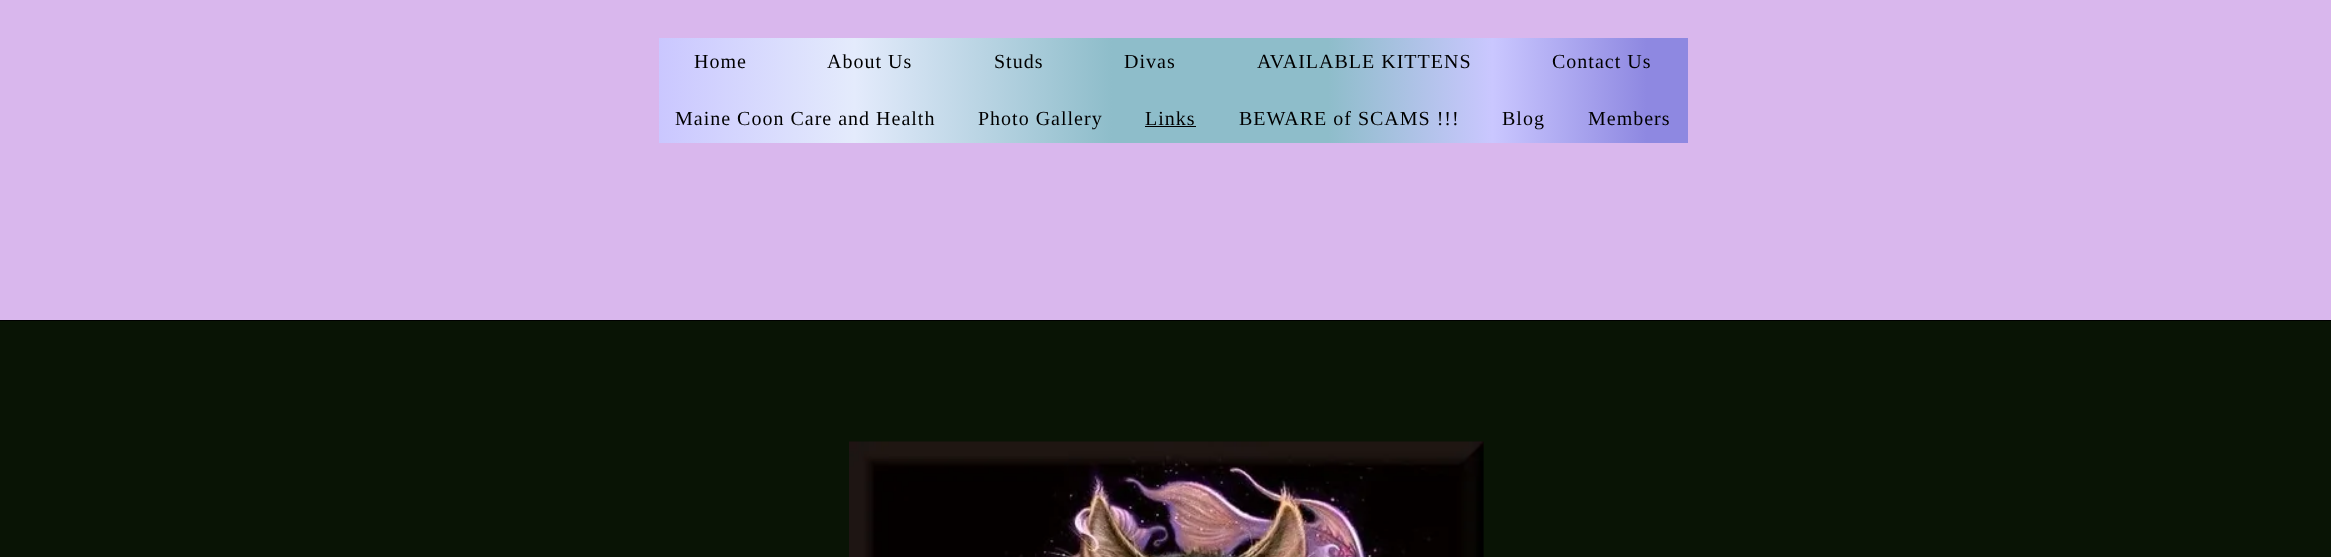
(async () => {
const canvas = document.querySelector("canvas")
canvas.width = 2331
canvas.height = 557
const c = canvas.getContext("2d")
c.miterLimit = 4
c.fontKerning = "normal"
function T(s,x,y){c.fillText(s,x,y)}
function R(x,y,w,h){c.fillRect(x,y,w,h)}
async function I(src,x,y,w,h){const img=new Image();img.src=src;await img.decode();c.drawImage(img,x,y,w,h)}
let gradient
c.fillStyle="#000"
R(0,0,2331,557)
c.fillStyle="#d9b7ed"
R(0,0,2331,320)
gradient = c.createLinearGradient(659,90,1688,90)
gradient.addColorStop(0,"#ff4500")
gradient.addColorStop(0,"#f9c300")
gradient.addColorStop(0,"#cac7ff")
gradient.addColorStop(.19,"#e4ebfc")
gradient.addColorStop(.44,"#8ebdca")
gradient.addColorStop(.65,"#8ebdca")
gradient.addColorStop(.81,"#cac7ff")
gradient.addColorStop(.96,"#8e88e1")
c.fillStyle = gradient
R(659,38,1029,105)
c.letterSpacing="1px"
c.font="20px Liberation Serif"
c.fillStyle="#000"
T("Home",694,68)
T("About Us",827,68)
T("Studs",994,68)
T("Divas",1124,68)
T("AVAILABLE KITTENS",1257,68)
T("Contact Us",1552,68)
T("Maine Coon Care and Health",675,125)
T("Photo Gallery",978,125)
T("Links",1145,125)
R(1145,126,51,1)
T("BEWARE of SCAMS !!!",1239,125)
T("Blog",1502,125)
T("Members",1588,125)
c.fillStyle="#091405"
R(0,321,2331,236)
await I("1.png",849,441,635,116)
})()
